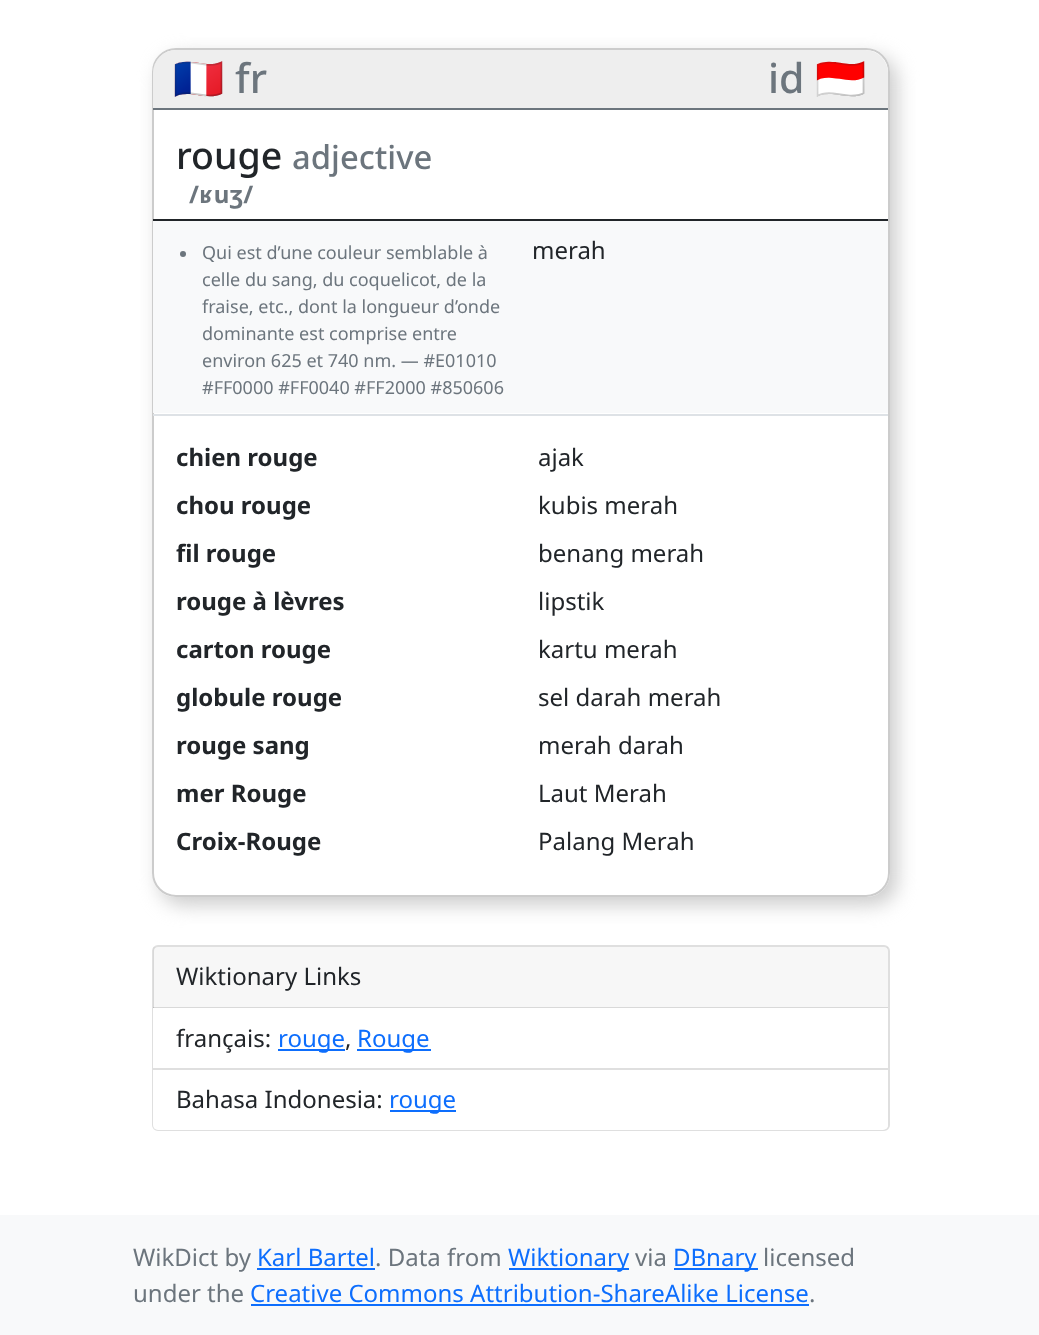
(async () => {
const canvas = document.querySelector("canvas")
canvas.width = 1039
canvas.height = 1335
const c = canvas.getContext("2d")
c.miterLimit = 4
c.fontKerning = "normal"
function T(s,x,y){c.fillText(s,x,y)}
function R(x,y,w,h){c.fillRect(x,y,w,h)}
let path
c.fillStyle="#fff"
R(0,0,1039,1335)
c.save()
path = new Path2D("M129 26h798v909h-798zm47 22h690c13.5 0 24 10.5 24 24v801c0 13.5-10.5 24-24 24h-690c-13.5 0-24-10.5-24-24v-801c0-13.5 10.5-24 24-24z")
c.clip(path,"evenodd")
c.fillStyle="#ccc"
c.filter="blur(9.5px)"
c.beginPath()
c.roundRect(159,56,738,849,24)
c.fill()
c.filter="none"
c.restore()
c.beginPath()
c.roundRect(153,49,736,847,23)
c.strokeStyle="#ccc"
c.lineWidth=2
c.stroke()
c.fillStyle="#eee"
c.beginPath()
c.roundRect(153,50,735,60,[23,23,0,0])
c.fill()
c.fillStyle="#6c757d"
R(153,108,735,2)
c.font="41px Noto Color Emoji"
T("🇫🇷",173,93)
c.font="500 41px Noto Sans"
T("fr",235,93)
T("id",768,93)
c.font="41px Noto Color Emoji"
T("🇮🇩",815,93)
c.fillStyle="#212529"
R(153,219,735,2)
c.font="500 37.5px Noto Sans"
T("rouge",176,169)
c.font="500 32.75px Noto Sans"
c.fillStyle="#6c757d"
T("adjective",292,169)
c.font="bold 24px Noto Sans"
T("/ʁuʒ/",189,203)
c.fillStyle="#f8f9fa"
R(153,221,735,192)
c.fillStyle="#6c757d"
c.beginPath()
c.arc(183,254,3,0,7)
c.fill()
c.font="18px Noto Sans"
T("Qui est d’une couleur semblable à",202,259)
T("celle du sang, du coquelicot, de la",202,286)
T("fraise, etc., dont la longueur d’onde",202,313)
T("dominante est comprise entre",202,340)
T("environ 625 et 740 nm. — #E01010",202,367)
T("#FF0000 #FF0040 #FF2000 #850606",202,394)
c.fillStyle="#dee2e6"
R(153,414,735,2)
c.font="24px Noto Sans"
c.fillStyle="#212529"
T("merah",532,259)
c.font="bold 24px Noto Sans"
T("chien rouge",176,466)
c.font="24px Noto Sans"
T("ajak",538,466)
c.font="bold 24px Noto Sans"
T("chou rouge",176,514)
c.font="24px Noto Sans"
T("kubis merah",538,514)
c.font="bold 24px Noto Sans"
T("fil rouge",176,562)
c.font="24px Noto Sans"
T("benang merah",538,562)
c.font="bold 24px Noto Sans"
T("rouge à lèvres",176,610)
c.font="24px Noto Sans"
T("lipstik",538,610)
c.font="bold 24px Noto Sans"
T("carton rouge",176,658)
c.font="24px Noto Sans"
T("kartu merah",538,658)
c.font="bold 24px Noto Sans"
T("globule rouge",176,706)
c.font="24px Noto Sans"
T("sel darah merah",538,706)
c.font="bold 24px Noto Sans"
T("rouge sang",176,754)
c.font="24px Noto Sans"
T("merah darah",538,754)
c.font="bold 24px Noto Sans"
T("mer Rouge",176,802)
c.font="24px Noto Sans"
T("Laut Merah",538,802)
c.font="bold 24px Noto Sans"
T("Croix-Rouge",176,850)
c.font="24px Noto Sans"
T("Palang Merah",538,850)
c.beginPath()
c.roundRect(153,946,736,184,5)
c.strokeStyle="#dfdfdf"
c.stroke()
c.fillStyle="#00000008"
R(153,947,735,61)
c.fillStyle="#0000001f"
R(153,1007,735,1)
c.fillStyle="#212529"
T("Wiktionary Links",176,985)
c.fillStyle="#fff"
R(153,1008,1,60)
c.fillStyle="#dfdfdf"
R(153,1068,735,2)
c.fillStyle="#212529"
T("français:",176,1047)
c.fillStyle="#0d6efd"
R(278,1049,67,2)
T("rouge",278,1047)
c.fillStyle="#212529"
T(",",345,1047)
c.fillStyle="#0d6efd"
R(357,1049,74,2)
T("Rouge",357,1047)
c.fillStyle="#fff"
c.beginPath()
c.roundRect(153,1070,735,60,[0,0,5,5])
c.fill()
c.fillStyle="#212529"
T("Bahasa Indonesia:",176,1108)
c.fillStyle="#0d6efd"
R(390,1110,66,2)
T("rouge",389,1108)
c.fillStyle="#f8f9fa"
R(0,1215,1039,120)
c.fillStyle="#6c757d"
T("WikDict by",133,1266)
c.fillStyle="#0d6efd"
T("Karl Bartel",257,1266)
R(257,1268,118,2)
c.fillStyle="#6c757d"
T(". Data from",375,1266)
c.fillStyle="#0d6efd"
R(509,1268,120,2)
T("Wiktionary",508,1266)
c.fillStyle="#6c757d"
T("via",635,1266)
c.fillStyle="#0d6efd"
R(674,1268,84,2)
T("DBnary",673,1266)
c.fillStyle="#6c757d"
T("licensed",763,1266)
T("under the",133,1302)
c.fillStyle="#0d6efd"
T("Creative Commons Attribution-ShareAlike License",250,1302)
R(251,1304,558,2)
c.fillStyle="#6c757d"
T(".",809,1302)
})()
